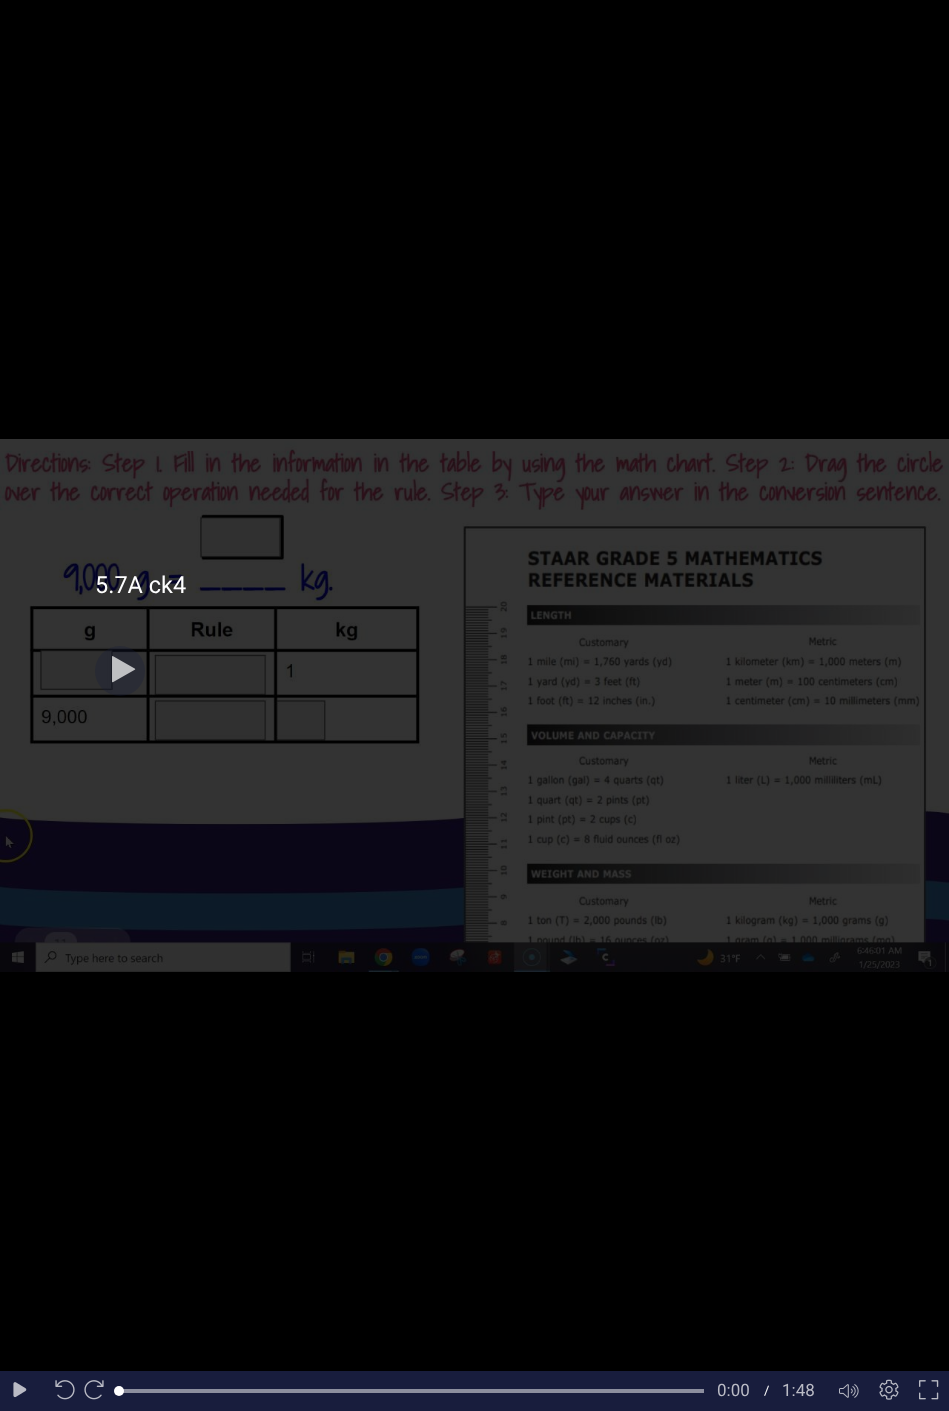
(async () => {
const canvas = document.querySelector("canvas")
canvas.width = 949
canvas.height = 1411
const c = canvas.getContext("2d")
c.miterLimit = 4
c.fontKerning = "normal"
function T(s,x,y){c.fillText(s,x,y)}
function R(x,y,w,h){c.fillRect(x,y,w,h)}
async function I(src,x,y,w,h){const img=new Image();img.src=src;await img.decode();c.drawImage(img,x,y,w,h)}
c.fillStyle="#000"
R(0,0,949,1411)
await I("2.png",0,439,949,533)
c.font="23.5px Roboto"
c.fillStyle="#fff"
T("5.7A ck4",95,593)
c.fillStyle="#181d3d4d"
c.beginPath()
c.arc(120,671,25,0,7)
c.fill()
await I("1.png",112,656,24,27)
c.fillStyle="#181d3d"
R(0,1371,750,40)
await I("3.png",13,1382,14,16)
R(750,1371,199,40)
await I("4.png",879,1379,20,21)
await I("5.png",55,1380,20,20)
await I("6.png",84,1380,20,20)
c.fillStyle="#8c8e9e"
R(119,1389,585,4)
c.fillStyle="#fff"
c.beginPath()
c.arc(119,1391,5,0,7)
c.fill()
c.font="17px Roboto"
c.fillStyle="#babbc5"
T("0:00",717,1396)
c.font="13px Roboto"
c.fillStyle="#fff"
T("/",764,1395)
c.font="17px Roboto"
c.fillStyle="#babbc5"
T("1:48",782,1396)
await I("7.png",839,1384,20,14)
await I("8.png",919,1380,20,20)
})()
